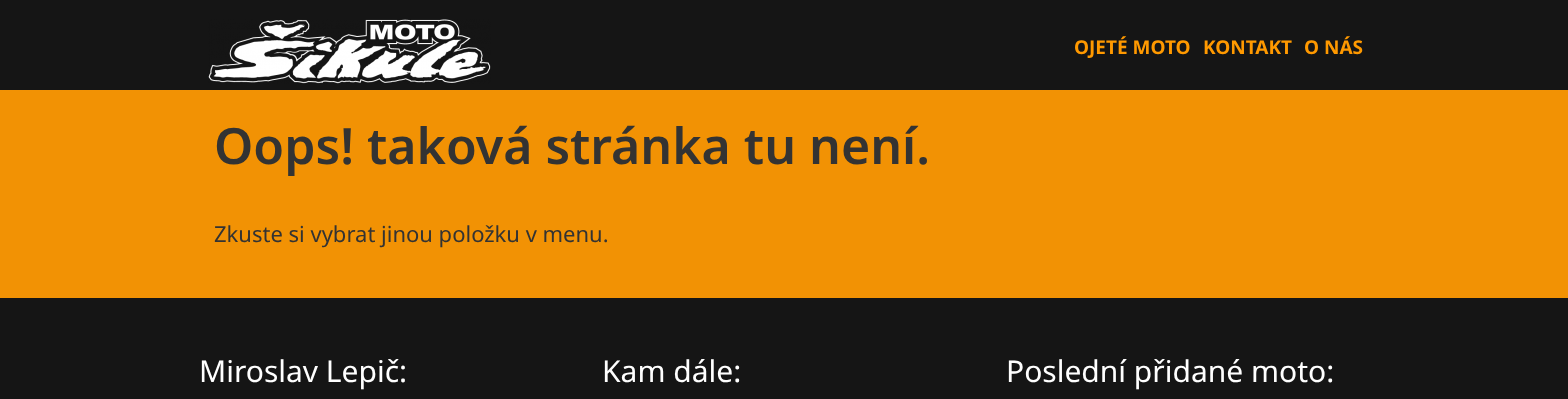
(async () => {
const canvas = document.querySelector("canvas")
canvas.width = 1568
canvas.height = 399
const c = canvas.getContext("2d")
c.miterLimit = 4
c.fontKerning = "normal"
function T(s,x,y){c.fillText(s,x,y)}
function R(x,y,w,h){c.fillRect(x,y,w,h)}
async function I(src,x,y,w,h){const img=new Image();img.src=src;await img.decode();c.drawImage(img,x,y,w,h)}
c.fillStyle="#f29204"
R(0,0,1568,399)
c.fillStyle="#151515"
R(0,0,1568,90)
await I("1.png",208,19,283,65)
c.font="bold 19px Noto Sans"
c.fillStyle="#f90"
T("OJETÉ MOTO",1074,54)
T("KONTAKT",1203,54)
T("O NÁS",1304,54)
c.font="600 50px Noto Sans"
c.fillStyle="#333"
T("Oops! taková stránka tu není.",214,164)
c.font="22px Noto Sans"
T("Zkuste si vybrat jinou položku v menu.",214,242)
c.fillStyle="#151515"
R(0,298,1568,101)
c.font="30px Noto Sans"
c.fillStyle="#fff"
T("Miroslav Lepič:",199,382)
T("Kam dále:",602,382)
T("Poslední přidané moto:",1006,382)
})()
